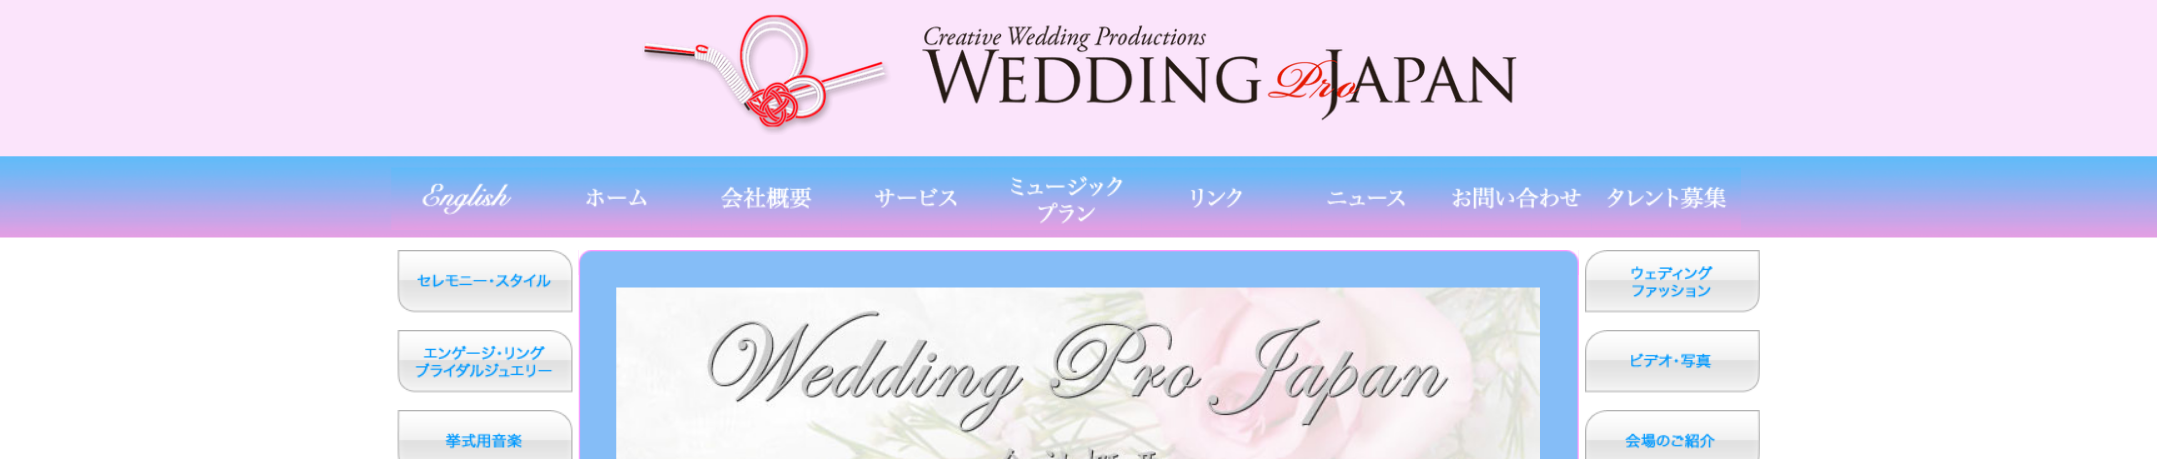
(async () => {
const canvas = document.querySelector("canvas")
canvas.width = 2157
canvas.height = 459
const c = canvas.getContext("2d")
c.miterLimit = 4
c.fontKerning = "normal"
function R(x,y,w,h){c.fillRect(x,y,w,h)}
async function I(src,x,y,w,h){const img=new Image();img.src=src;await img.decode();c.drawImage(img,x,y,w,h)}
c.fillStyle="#fff"
R(0,0,2157,459)
await I("1.png",0,0,2157,238)
await I("2.png",642,14,875,121)
await I("3.png",391,167,150,63)
await I("4.png",541,167,150,63)
await I("5.png",691,167,150,63)
await I("6.png",841,167,150,63)
await I("7.png",991,167,150,63)
await I("8.png",1141,167,150,63)
await I("9.png",1291,167,150,63)
await I("10.png",1441,167,150,63)
await I("11.png",1591,167,150,63)
await I("12.png",397,250,176,63)
await I("13.png",397,330,176,63)
await I("14.png",397,410,176,49)
await I("15.png",578,250,1001,209)
await I("16.png",578,250,1001,25)
await I("17.png",616,287,924,172)
await I("18.png",1585,250,175,63)
await I("19.png",1585,330,175,63)
await I("20.png",1585,410,175,49)
})()
